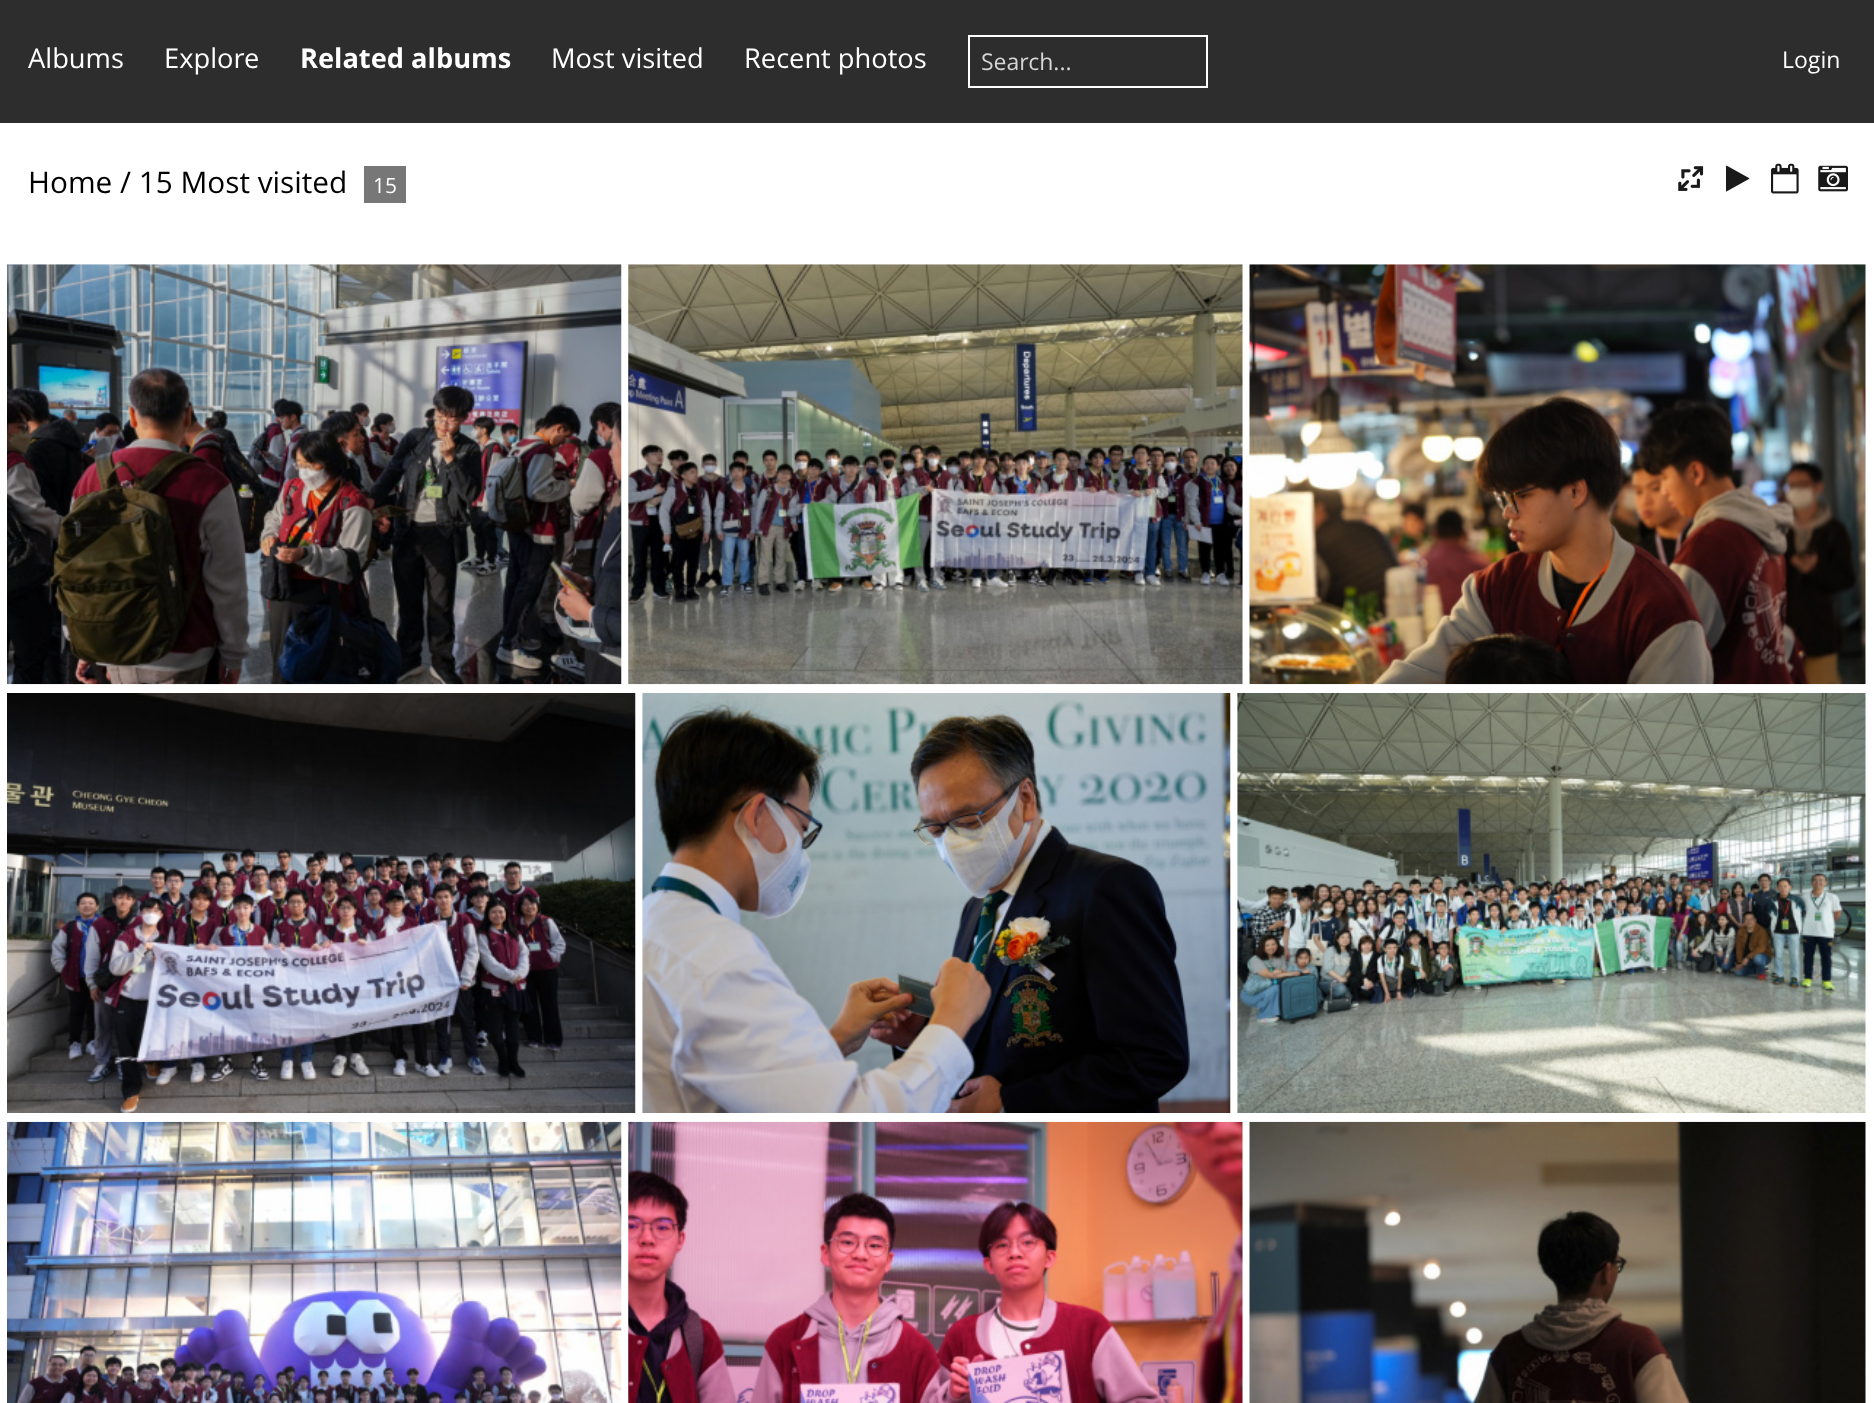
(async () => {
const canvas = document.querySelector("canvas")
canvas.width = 1874
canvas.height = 1403
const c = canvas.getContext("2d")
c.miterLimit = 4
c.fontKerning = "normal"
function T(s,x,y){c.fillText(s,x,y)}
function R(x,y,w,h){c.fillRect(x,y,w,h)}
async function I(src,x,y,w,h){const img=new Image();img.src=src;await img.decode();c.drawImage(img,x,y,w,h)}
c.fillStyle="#fff"
R(0,0,1874,1403)
c.fillStyle="#2d2d2d"
R(0,0,1874,123)
c.font="27.25px Open Sans"
c.fillStyle="#fff"
T("Albums",28,68)
T("Explore",164,68)
c.font="bold 27.25px Open Sans"
T("Related albums",300,68)
c.font="27.25px Open Sans"
T("Most visited",551,68)
T("Recent photos",744,68)
c.strokeStyle="#fff"
c.lineWidth=2
c.strokeRect(969,36,238,51)
c.font="23px Open Sans"
c.fillStyle="#d6d6d6"
T("Search...",981,70)
c.fillStyle="#fff"
T("Login",1782,68)
c.font="29.75px Open Sans"
c.fillStyle="#000"
T("Home / 15 Most visited",28,193)
c.fillStyle="#777"
R(364,166,42,37)
c.font="21px Open Sans"
c.fillStyle="#fff"
T("15",373,193)
await I("1.png",1678,166,26,25)
c.font="29.75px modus"
c.fillStyle="#1a1a1a"
T("▶",1726,189)
await I("2.png",1771,163,28,31)
await I("3.png",1818,165,30,27)
await I("4.png",7,264,615,421)
await I("5.png",628,264,615,421)
await I("6.png",1249,264,617,421)
await I("7.png",7,693,629,420)
await I("8.png",642,693,589,420)
await I("9.png",1237,693,629,420)
await I("10.png",7,1121,615,282)
await I("11.png",628,1121,615,282)
await I("12.png",1249,1121,617,282)
})()
